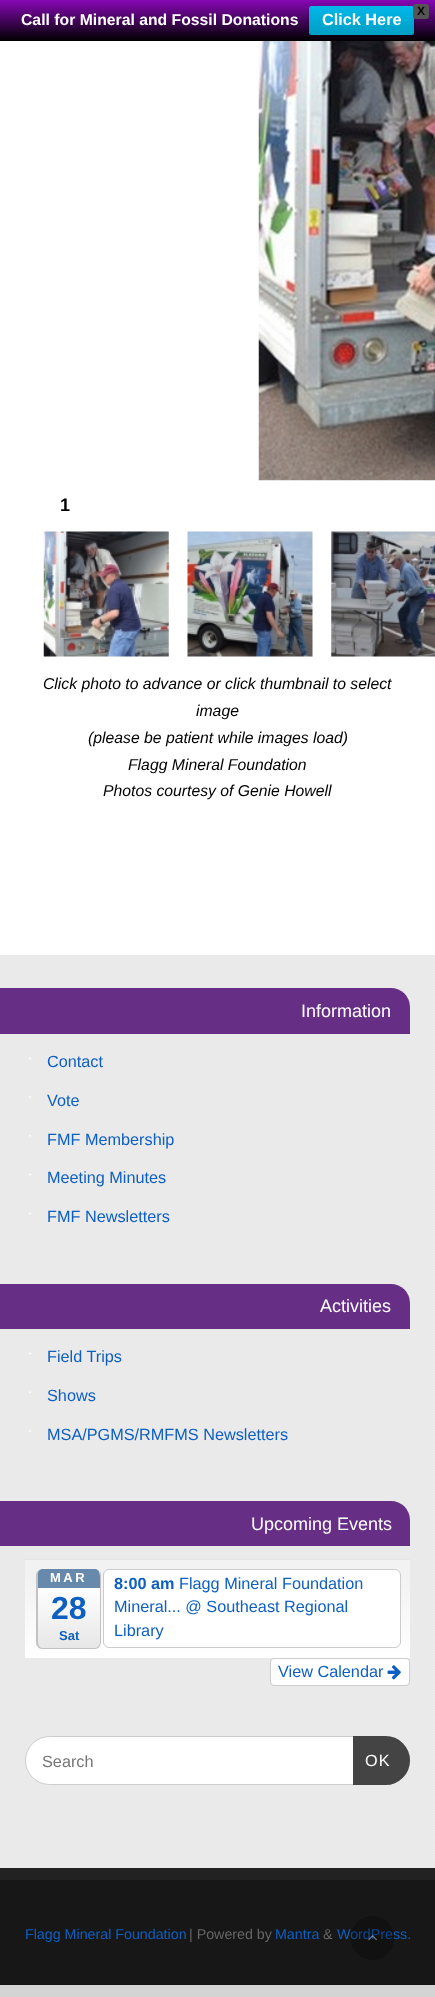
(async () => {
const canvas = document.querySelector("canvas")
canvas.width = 435
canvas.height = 1997
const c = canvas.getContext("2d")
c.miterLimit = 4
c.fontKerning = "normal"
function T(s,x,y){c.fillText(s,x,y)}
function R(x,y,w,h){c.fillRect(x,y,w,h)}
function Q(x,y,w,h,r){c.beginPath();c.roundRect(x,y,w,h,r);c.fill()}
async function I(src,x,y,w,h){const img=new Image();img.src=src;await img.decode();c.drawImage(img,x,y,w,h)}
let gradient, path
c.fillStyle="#d4d4d4"
R(0,0,435,1997)
c.fillStyle="#fff"
R(0,41,435,914)
c.strokeStyle="#fff"
c.lineWidth=8
c.strokeRect(255,-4,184,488)
gradient = c.createLinearGradient(218,0,218,41)
gradient.addColorStop(0,"#8707b5")
gradient.addColorStop(1,"#000")
c.fillStyle = gradient
R(0,0,435,41)
c.fillStyle="#00000033"
c.filter="blur(1px)"
c.beginPath()
c.roundRect(309,8,105,28,2.5)
c.fill()
c.filter="none"
gradient = c.createLinearGradient(361,6.2,361,35)
gradient.addColorStop(0,"#00b7ea")
gradient.addColorStop(1,"#009ec3")
c.fillStyle = gradient
Q(309,6,105,29,2.5)
c.fillStyle="#555"
c.beginPath()
c.roundRect(413.5,4.5,15,14,2)
c.fill()
c.strokeStyle="#555"
c.lineWidth=1
c.stroke()
c.font="bold 12px Liberation Sans"
c.fillStyle="#000"
T("X",417,15)
c.font="bold 15.75px Liberation Sans"
c.fillStyle="#fff"
T("Call for Mineral and Fossil Donations",21,25)
c.font="bold 16.25px Liberation Sans"
T("Click Here",322,25)
await I("1.png",258,41,177,440)
c.font="bold 18px Liberation Sans"
c.fillStyle="#000"
T("1",60,511)
await I("2.png",43,531,126,126)
await I("3.png",187,531,126,126)
await I("4.png",331,531,104,126)
c.font="italic 15.75px Liberation Sans"
T("Click photo to advance or click thumbnail to select",43,689)
T("image",196,716)
T("(please be patient while images load)",88,743)
T("Flagg Mineral Foundation",128,770)
T("Photos courtesy of Genie Howell",103,796)
c.fillStyle="#eaeaea"
R(0,955,435,913)
path = new Path2D("M434.5 955v912.5")
c.strokeStyle="#eee"
c.lineWidth=1.2
c.setLineDash([1.25,1.25])
c.stroke(path)
c.fillStyle="#672e86"
c.beginPath()
c.roundRect(0,988,410,46,[0,19,0,0])
c.fill()
c.font="18px Liberation Sans"
c.fillStyle="#fff"
T("Information",301,1017)
await I("5.png",28,1057,4,2)
c.font="16.25px Liberation Sans"
c.fillStyle="#0e5fc2"
T("Contact",47,1067)
await I("6.png",29,1096,2,2)
T("Vote",47,1106)
await I("7.png",29,1135,2,2)
T("FMF Membership",47,1145)
await I("8.png",28,1174,4,2)
T("Meeting Minutes",47,1183)
await I("5.png",28,1212,4,2)
T("FMF Newsletters",47,1222)
c.fillStyle="#672e86"
c.beginPath()
c.roundRect(0,1284,410,45,[0,19,0,0])
c.fill()
c.font="18px Liberation Sans"
c.fillStyle="#fff"
T("Activities",320,1312)
await I("5.png",28,1352,4,2)
c.font="16.25px Liberation Sans"
c.fillStyle="#0e5fc2"
T("Field Trips",47,1362)
await I("6.png",29,1391,2,2)
T("Shows",47,1401)
await I("7.png",29,1430,2,2)
T("MSA/PGMS/RMFMS Newsletters",47,1440)
c.fillStyle="#672e86"
c.beginPath()
c.roundRect(0,1501,410,45,[0,19,0,0])
c.fill()
c.font="18px Liberation Sans"
c.fillStyle="#fff"
T("Upcoming Events",251,1530)
gradient = c.createLinearGradient(218,1560,218,1658)
gradient.addColorStop(0,"#f2f2f2")
gradient.addColorStop(.17,"#f2f2f2")
gradient.addColorStop(1,"#fff")
c.fillStyle = gradient
R(25,1560,385,98)
c.fillStyle="#e5e5e5"
R(25,1559,385,1)
c.save()
c.beginPath()
c.roundRect(36,1569,65,80,6)
c.clip()
gradient = c.createLinearGradient(69,1569,69,1648)
gradient.addColorStop(0,"#fff")
gradient.addColorStop(.21,"#fff")
gradient.addColorStop(1,"#e7e7e7")
c.fillStyle = gradient
R(38,1569,62,79)
c.restore()
c.fillStyle="#c2c2c2"
path = new Path2D("M42 1569h53c3 0 6 3 6 6v67c0 4-3 7-6 7h-53c-3 0-6-3-6-7v-67c0-3 3-6 6-6zm0 0h53c3 0 5 3 5 6v67c0 3-2 6-5 6h-53c-2 0-4-3-4-6v-67c0-3 2-6 4-6z")
c.fill(path,"evenodd")
c.fillStyle="#6689ac"
path = new Path2D("M43 1569c-3 0-5 2-5 5v14h62v-9c0-3 0-10-5-10z")
c.fill(path)
c.letterSpacing="2.5px"
c.font="bold 13px Liberation Sans"
c.fillStyle="#fff"
T("MAR",50,1582)
c.letterSpacing="0px"
c.font="bold 32px Liberation Sans"
c.fillStyle="#0e5fc2"
T("28",51,1619)
c.font="bold 13px Liberation Sans"
T("Sat",59,1640)
c.fillStyle="#fff"
c.beginPath()
c.roundRect(103.5,1569.5,297,78,5.5)
c.fill()
c.strokeStyle="#ccc"
c.lineWidth=1
c.setLineDash([])
c.stroke()
c.font="bold 16.25px Liberation Sans"
c.fillStyle="#0e5fc2"
T("8:00 am",114,1589)
c.font="16.25px Liberation Sans"
T("Flagg Mineral Foundation",179,1589)
T("Mineral... @ Southeast Regional",114,1612)
T("Library",114,1636)
c.fillStyle="#fff"
c.beginPath()
c.roundRect(270.5,1658.5,139,27,3.5)
c.fill()
c.stroke()
c.fillStyle="#0e5fc2"
T("View Calendar",278,1677)
await I("9.png",387,1665,14,15)
c.fillStyle="#fff"
c.beginPath()
c.roundRect(25.5,1736.5,384,48,24)
c.fill()
c.stroke()
c.fillStyle="#757575"
T("Search",42,1767)
c.fillStyle="#444"
c.beginPath()
c.roundRect(353,1736,57,49,[0,24.5,24.5,0])
c.fill()
c.letterSpacing="1px"
c.fillStyle="#fff"
T("OK",365,1766)
c.fillStyle="#222"
R(0,1868,435,12)
c.fillStyle="#171717"
R(0,1880,435,105)
c.letterSpacing="0px"
c.font="14.25px Liberation Sans"
c.fillStyle="#0e5fc2"
T("Flagg Mineral Foundation",25,1939)
c.fillStyle="#666"
T("| Powered by",189,1939)
c.fillStyle="#0e5fc2"
T("Mantra",275,1939)
c.fillStyle="#666"
T("&",323,1939)
c.fillStyle="#0e5fc2"
T("WordPress.",337,1939)
c.fillStyle="#00000040"
Q(351,1916,43,44,21.5)
await I("10.png",368,1935,9,6)
})()
